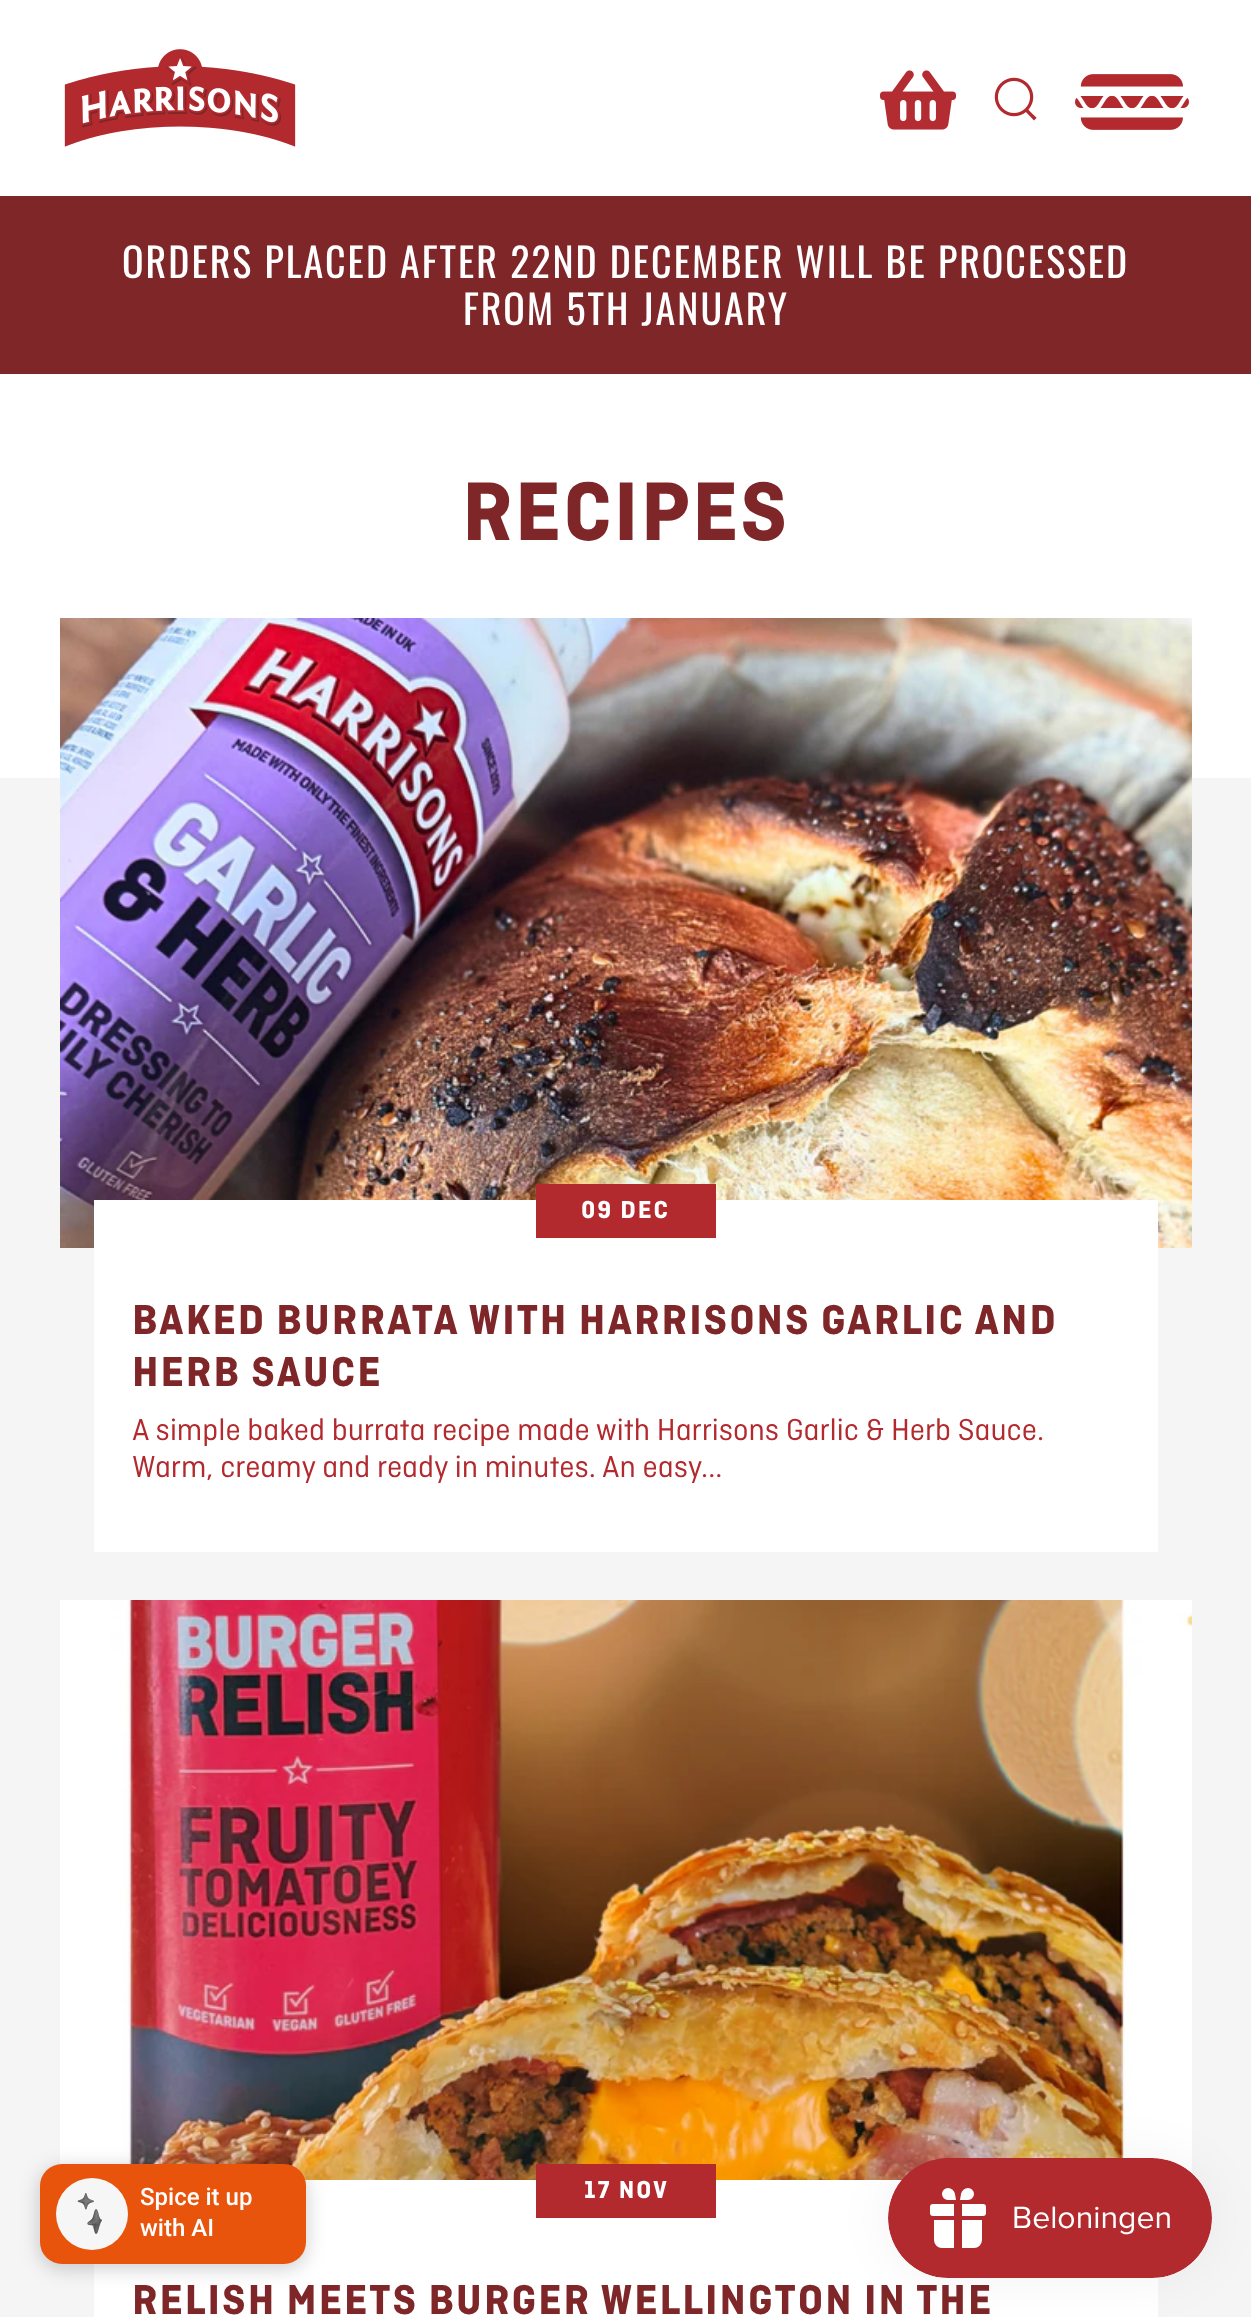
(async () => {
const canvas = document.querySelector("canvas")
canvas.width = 1251
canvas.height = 2317
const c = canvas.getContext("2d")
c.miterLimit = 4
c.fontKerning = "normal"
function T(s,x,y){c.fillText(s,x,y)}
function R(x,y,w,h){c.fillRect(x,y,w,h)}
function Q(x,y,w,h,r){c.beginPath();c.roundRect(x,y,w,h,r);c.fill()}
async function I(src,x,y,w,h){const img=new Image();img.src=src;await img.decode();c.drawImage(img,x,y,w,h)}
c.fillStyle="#fff"
R(0,0,1251,2317)
await I("1.png",64,49,232,98)
await I("2.png",880,70,76,60)
await I("3.png",994,77,43,44)
await I("4.png",1075,74,114,56)
c.fillStyle="#7f2629"
R(0,196,1251,178)
c.letterSpacing="2px"
c.font="40px Oswald"
c.fillStyle="#fff"
T("ORDERS PLACED AFTER 22ND DECEMBER WILL BE PROCESSED",122,278)
T("FROM 5TH JANUARY",463,325)
c.font="bold 87.5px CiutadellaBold"
c.fillStyle="#7f2629"
T("RECIPES",462,540)
c.fillStyle="#f5f5f5"
R(0,778,1251,1539)
await I("5.png",60,618,1132,630)
c.fillStyle="#fff"
R(94,1200,1064,352)
c.fillStyle="#b2292e"
R(536,1184,180,54)
c.font="bold 26px CiutadellaBold"
c.fillStyle="#fff"
T("09 DEC",581,1218)
c.font="bold 44px CiutadellaBold"
c.fillStyle="#7f2629"
T("BAKED BURRATA WITH HARRISONS GARLIC AND",132,1334)
T("HERB SAUCE",132,1386)
c.letterSpacing="0px"
c.font="32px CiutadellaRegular"
c.fillStyle="#b2292e"
T("A simple baked burrata recipe made with Harrisons Garlic & Herb Sauce.",132,1440)
T("Warm, creamy and ready in minutes. An easy...",132,1477)
await I("6.png",60,1600,1132,580)
c.fillStyle="#fff"
R(94,2180,1064,137)
c.fillStyle="#b2292e"
R(536,2164,180,54)
c.letterSpacing="2px"
c.font="bold 26px CiutadellaBold"
c.fillStyle="#fff"
T("17 NOV",584,2198)
c.font="bold 44px CiutadellaBold"
c.fillStyle="#7f2629"
T("RELISH MEETS BURGER WELLINGTON IN THE",132,2314)
c.fillStyle="#00000033"
c.filter="blur(10px)"
c.beginPath()
c.roundRect(40,2168,266,100,22)
c.fill()
c.filter="none"
c.fillStyle="#e9540d"
Q(40,2164,266,100,22)
c.fillStyle="#f6f6f6"
c.beginPath()
c.arc(92,2214,36,0,7)
c.fill()
await I("7.png",77,2192,26,43)
c.letterSpacing="0px"
c.font="500 24px Roboto"
c.fillStyle="#fff"
T("Spice it up",140,2205)
T("with AI",140,2236)
c.fillStyle="#0000000d"
c.filter="blur(25px)"
c.beginPath()
c.roundRect(888,2158,324,120,60)
c.fill()
c.filter="none"
await I("8.png",888,2158,324,120)
})()
